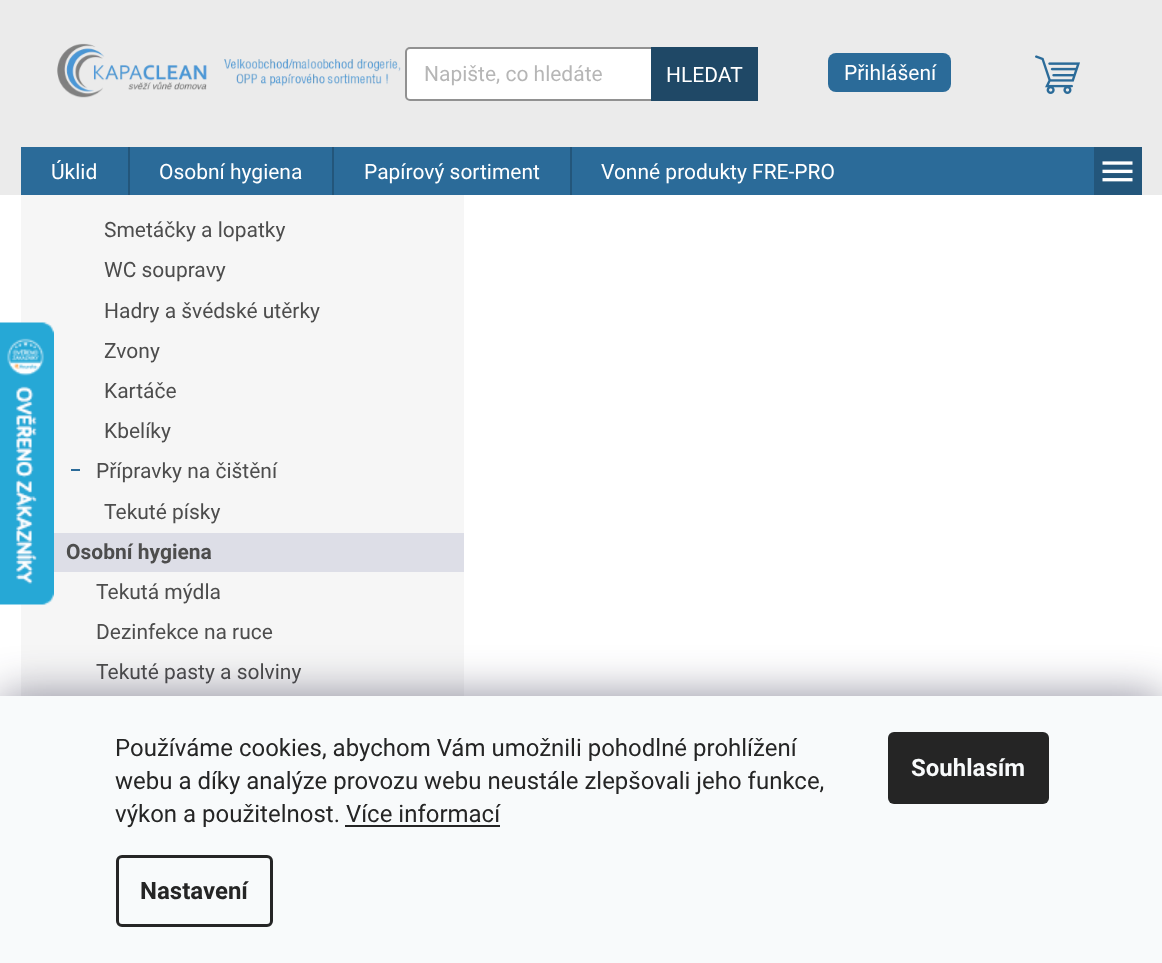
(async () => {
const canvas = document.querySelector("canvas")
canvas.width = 1162
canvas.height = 963
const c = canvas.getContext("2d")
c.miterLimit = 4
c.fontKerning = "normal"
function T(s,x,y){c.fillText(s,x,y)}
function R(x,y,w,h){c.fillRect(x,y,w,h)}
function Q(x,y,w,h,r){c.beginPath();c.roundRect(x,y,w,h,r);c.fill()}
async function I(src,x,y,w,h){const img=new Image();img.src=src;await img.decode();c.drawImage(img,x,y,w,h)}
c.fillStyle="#fff"
R(0,0,1162,963)
c.fillStyle="#f6f6f6"
R(21,195,443,501)
await I("1.png",0,322,54,283)
c.fillStyle="#ebebeb"
R(0,0,1162,195)
await I("2.png",57,43,344,55)
c.fillStyle="#fff"
c.beginPath()
c.roundRect(406,48,351,52,4)
c.fill()
c.strokeStyle="#919191"
c.lineWidth=2
c.stroke()
c.font="21px Roboto"
c.fillStyle="#b6b6b6"
T("Napište, co hledáte",424,81)
c.fillStyle="#1f4866"
R(651,47,107,54)
c.fillStyle="#fff"
T("HLEDAT",666,82)
c.fillStyle="#2b6b99"
Q(828,53,123,39,8)
c.fillStyle="#fff"
T("Přihlášení",844,80)
await I("3.png",1035,55,45,39)
c.fillStyle="#2b6b99"
R(21,147,1073,48)
c.fillStyle="#fff"
T("Úklid",51,179)
c.fillStyle="#23567b"
R(128,147,2,48)
c.fillStyle="#fff"
T("Osobní hygiena",159,179)
c.fillStyle="#23567b"
R(332,147,2,48)
c.fillStyle="#fff"
T("Papírový sortiment",364,179)
c.fillStyle="#23567b"
R(570,147,2,48)
c.fillStyle="#fff"
T("Vonné produkty FRE-PRO",601,179)
c.fillStyle="#23567b"
R(1094,147,48,48)
await I("4.png",1102,161,31,21)
c.fillStyle="#4d4d4d"
T("Smetáčky a lopatky",104,237)
T("WC soupravy",104,277)
T("Hadry a švédské utěrky",104,318)
T("Zvony",104,358)
T("Kartáče",104,398)
T("Kbelíky",104,438)
c.fillStyle="#2b6b99"
R(71,469,9,2)
c.fillStyle="#4d4d4d"
T("Přípravky na čištění",96,478)
T("Tekuté písky",104,519)
c.fillStyle="#dddee7"
R(54,533,410,39)
c.font="bold 21px Roboto"
c.fillStyle="#4d4d4d"
T("Osobní hygiena",66,559)
c.font="21px Roboto"
T("Tekutá mýdla",96,599)
T("Dezinfekce na ruce",96,639)
T("Tekuté pasty a solviny",96,679)
c.fillStyle="#1b193980"
c.filter="blur(22.5px)"
c.beginPath()
c.rect(0,696,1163,267)
c.fill()
c.filter="none"
c.fillStyle="#f8fafb"
R(0,696,1162,267)
c.font="24px Roboto"
c.fillStyle="#252525"
T("Používáme cookies, abychom Vám umožnili pohodlné prohlížení",115,756)
T("webu a díky analýze provozu webu neustále zlepšovali jeho funkce,",115,789)
T("výkon a použitelnost. Více informací",115,822)
R(345,825,155,2)
c.beginPath()
c.roundRect(117.5,856.5,154,69,4.5)
c.strokeStyle="#252525"
c.lineWidth=3
c.stroke()
c.font="bold 24px Roboto"
T("Nastavení",140,899)
Q(888,732,161,72,6)
c.fillStyle="#f8fafb"
T("Souhlasím",911,776)
})()
